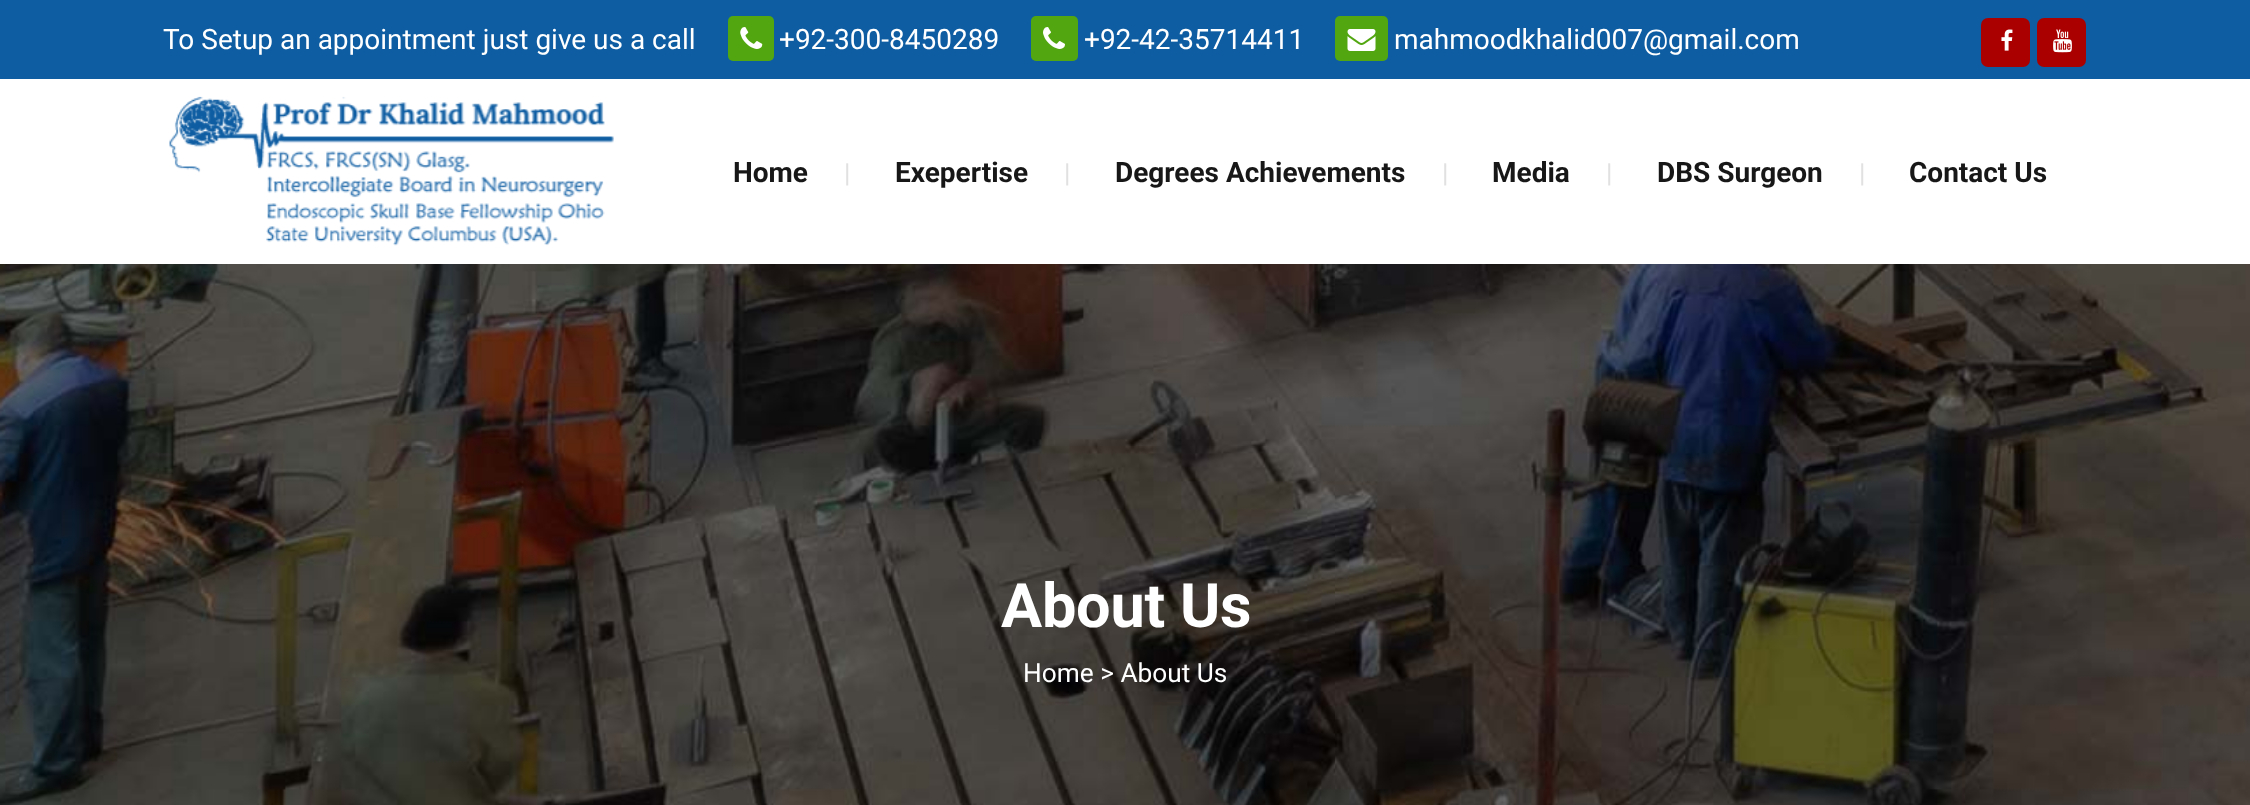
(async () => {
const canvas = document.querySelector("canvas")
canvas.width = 2250
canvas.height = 805
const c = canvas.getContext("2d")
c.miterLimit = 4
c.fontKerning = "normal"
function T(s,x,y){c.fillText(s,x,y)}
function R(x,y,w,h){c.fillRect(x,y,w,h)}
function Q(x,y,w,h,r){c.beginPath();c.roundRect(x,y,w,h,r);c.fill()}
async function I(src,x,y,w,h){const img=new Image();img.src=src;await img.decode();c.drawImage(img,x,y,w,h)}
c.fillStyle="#fff"
R(0,0,2250,805)
c.fillStyle="#0e5da2"
R(0,0,2250,79)
c.font="28px Roboto"
c.fillStyle="#fff"
T("To Setup an appointment just give us a call",163,49)
c.fillStyle="#52a711"
Q(728,16,46,45,5)
await I("1.png",740,27,23,22)
c.fillStyle="#fff"
T("+92-300-8450289",779,49)
c.fillStyle="#52a711"
Q(1031,16,47,45,5)
await I("2.png",1043,27,22,22)
c.fillStyle="#fff"
T("+92-42-35714411",1084,49)
c.fillStyle="#52a711"
Q(1335,16,53,45,5)
await I("3.png",1347,29,29,22)
c.fillStyle="#fff"
T("mahmoodkhalid007@gmail.com",1394,49)
c.fillStyle="#ab0000"
Q(1981,18,49,49,7)
await I("4.png",2001,29,12,22)
Q(2037,18,49,49,7)
await I("5.png",2053,29,19,24)
await I("6.png",169,96,445,150)
c.font="bold 28px Roboto"
c.fillStyle="#171717"
T("Home",733,182)
c.font="26.25px Roboto"
c.fillStyle="#e1e1e1"
T("|",844,182)
c.font="bold 28px Roboto"
c.fillStyle="#171717"
T("Exepertise",895,182)
c.font="26.25px Roboto"
c.fillStyle="#e1e1e1"
T("|",1064,182)
c.font="bold 28px Roboto"
c.fillStyle="#171717"
T("Degrees Achievements",1115,182)
c.font="26.25px Roboto"
c.fillStyle="#e1e1e1"
T("|",1442,182)
c.font="bold 28px Roboto"
c.fillStyle="#171717"
T("Media",1492,182)
c.font="26.25px Roboto"
c.fillStyle="#e1e1e1"
T("|",1606,182)
c.font="bold 28px Roboto"
c.fillStyle="#171717"
T("DBS Surgeon",1657,182)
c.font="26.25px Roboto"
c.fillStyle="#e1e1e1"
T("|",1859,182)
c.font="bold 28px Roboto"
c.fillStyle="#171717"
T("Contact Us",1909,182)
await I("7.png",0,264,2250,541)
c.letterSpacing="-0.25px"
c.font="bold 61.25px Roboto"
c.fillStyle="#fff"
T("About Us",1001,627)
c.letterSpacing="0px"
c.font="26.25px Roboto"
T("Home > About Us",1023,682)
})()
